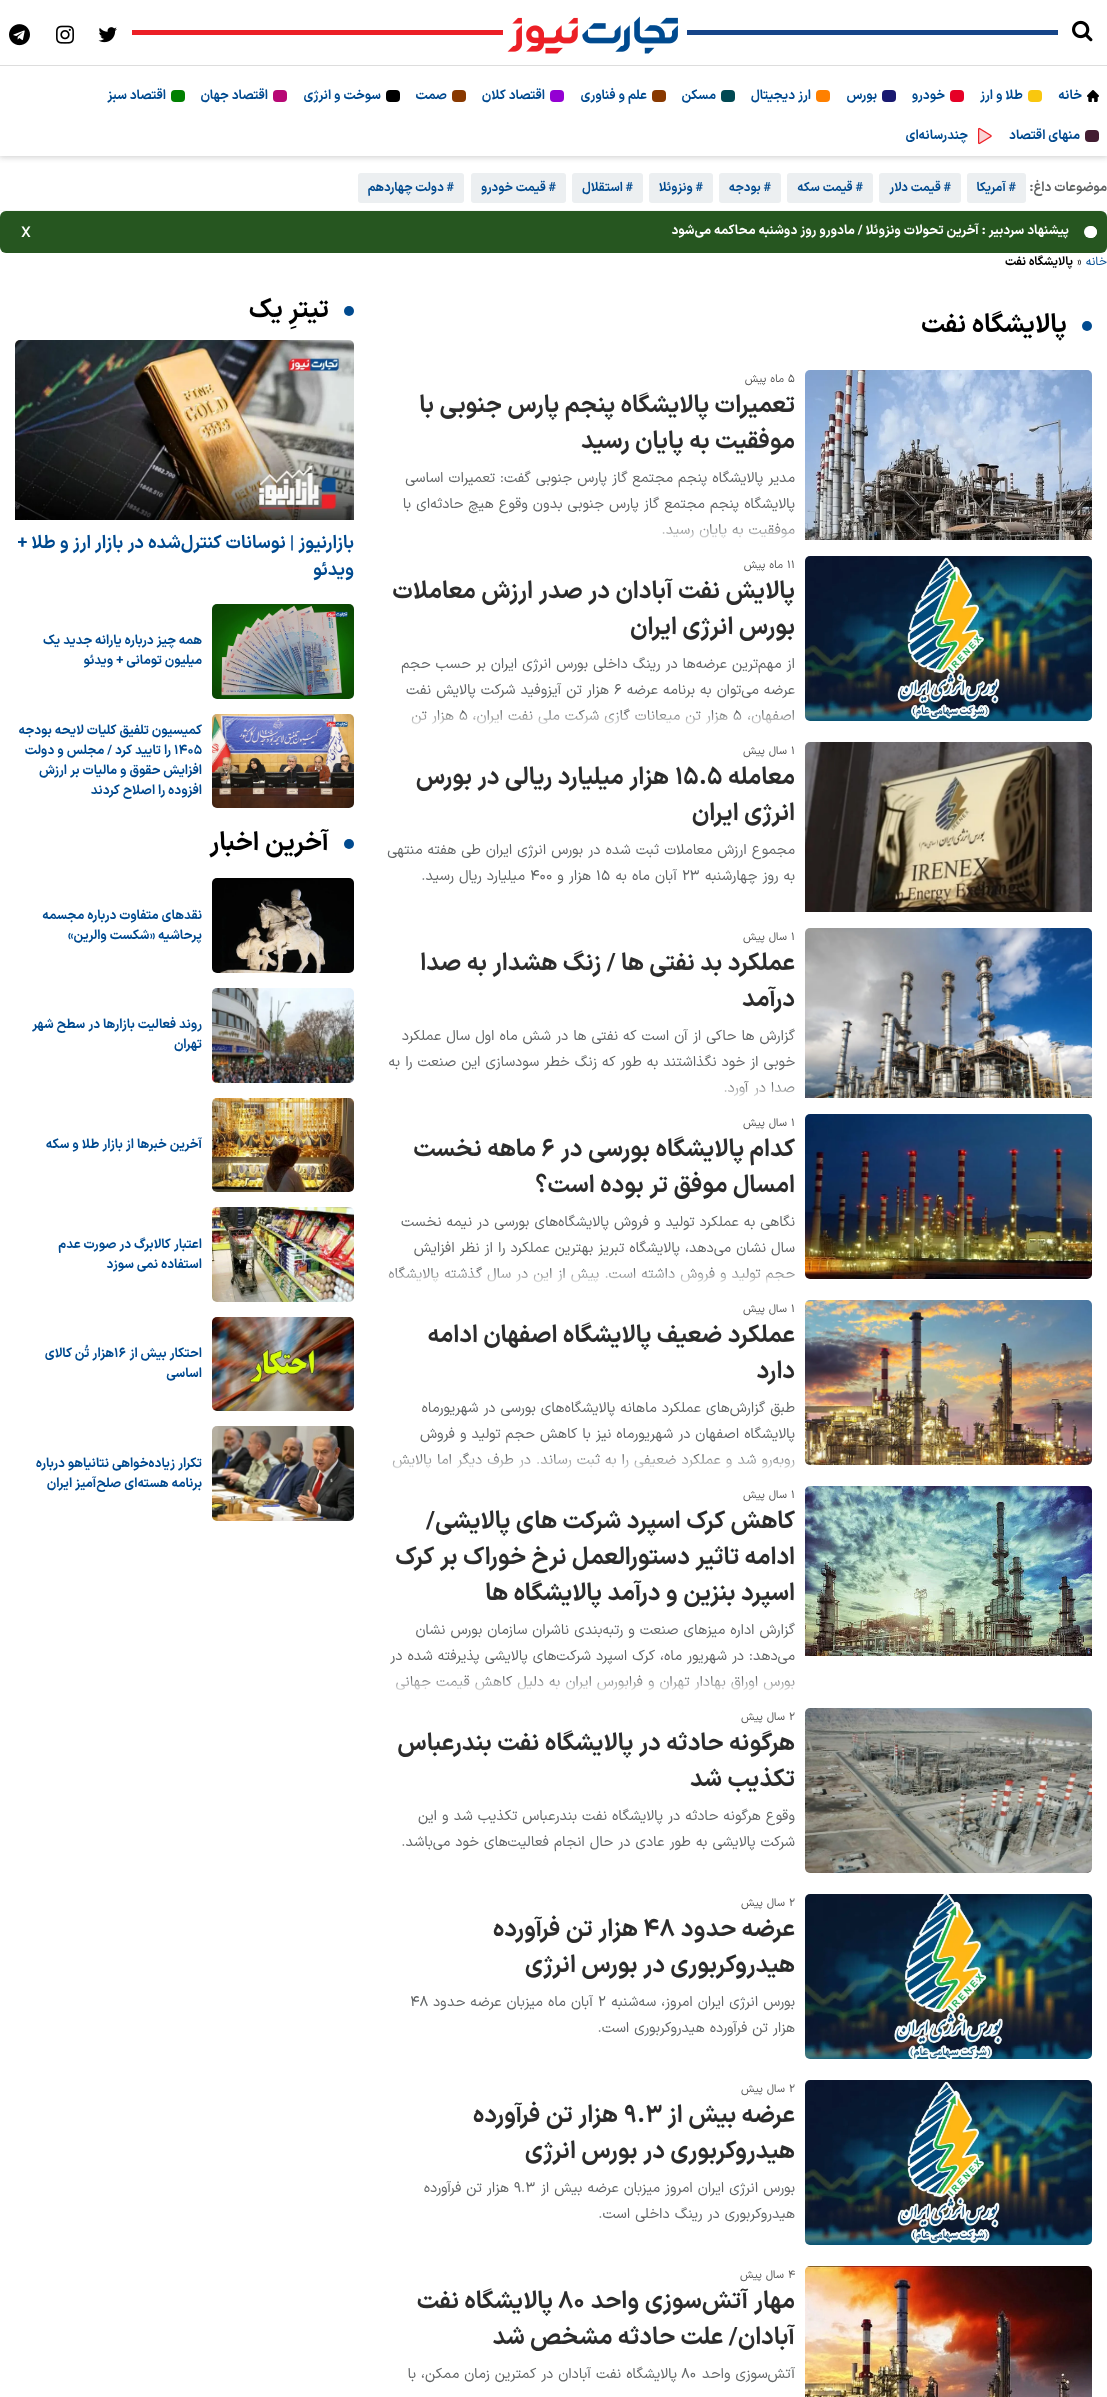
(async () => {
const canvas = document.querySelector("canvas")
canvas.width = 1107
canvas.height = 2397
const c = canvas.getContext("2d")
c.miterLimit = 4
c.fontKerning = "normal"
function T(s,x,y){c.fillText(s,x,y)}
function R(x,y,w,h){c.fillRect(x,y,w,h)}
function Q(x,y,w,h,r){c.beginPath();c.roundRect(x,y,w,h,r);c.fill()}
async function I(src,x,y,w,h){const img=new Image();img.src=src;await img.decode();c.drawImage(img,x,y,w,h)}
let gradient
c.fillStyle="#fff"
R(0,0,1107,2397)
c.save()
c.beginPath()
c.rect(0,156,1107,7)
c.clip()
c.fillStyle="#ccc"
c.filter="blur(3px)"
c.beginPath()
c.rect(-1,-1,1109,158)
c.fill()
c.filter="none"
c.restore()
c.fillStyle="#ddd"
R(0,65,1107,1)
await I("1.png",1072,20,21,22)
c.fillStyle="#164589"
R(687,30,371,5)
await I("2.png",507,16,171,38)
c.fillStyle="#ec1f26"
R(132,30,371,5)
await I("3.png",98,27,19,16)
await I("4.png",56,25,18,19)
await I("5.png",9,24,21,22)
await I("6.png",1087,90,12,12)
c.direction="rtl"
c.font="bold 13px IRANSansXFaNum"
c.fillStyle="#004a8f"
T("خانه",1082,99)
c.fillStyle="#f9c70e"
Q(1028,90,14,12,4)
c.fillStyle="#004a8f"
T("طلا و ارز",1023,99)
c.fillStyle="#e60026"
Q(950,90,14,12,4)
c.fillStyle="#004a8f"
T("خودرو",945,99)
c.fillStyle="#191970"
Q(882,90,14,12,4)
c.fillStyle="#004a8f"
T("بورس",877,99)
c.fillStyle="#ff8000"
Q(816,90,14,12,4)
c.fillStyle="#004a8f"
T("ارز دیجیتال",811,99)
c.fillStyle="#004953"
Q(721,90,14,12,4)
c.fillStyle="#004a8f"
T("مسکن",716,99)
c.fillStyle="#893900"
Q(652,90,14,12,4)
c.fillStyle="#004a8f"
T("علم و فناوری",647,99)
c.fillStyle="#9400d3"
Q(550,90,14,12,4)
c.fillStyle="#004a8f"
T("اقتصاد کلان",545,99)
c.fillStyle="#893900"
Q(452,90,14,12,4)
c.fillStyle="#004a8f"
T("صمت",447,99)
c.fillStyle="#000"
Q(386,90,14,12,4)
c.fillStyle="#004a8f"
T("سوخت و انرژی",381,99)
c.fillStyle="#b70774"
Q(273,90,14,12,4)
c.fillStyle="#004a8f"
T("اقتصاد جهان",268,99)
c.fillStyle="#008000"
Q(171,90,14,12,4)
c.fillStyle="#004a8f"
T("اقتصاد سبز",166,99)
c.fillStyle="#431d32"
Q(1085,130,14,12,4)
c.fillStyle="#004a8f"
T("منهای اقتصاد",1080,139)
await I("7.png",978,127,14,18)
T("چندرسانه‌ای",968,139)
c.fillStyle="#f5f5f5"
R(0,210,1107,1)
c.fillStyle="#626566"
T("موضوعات داغ:",1107,191)
c.fillStyle="#eceff1"
Q(967,173,59,30,3)
c.font="bold 12.5px IRANSansXFaNum"
c.fillStyle="#004a8f"
T("# آمریکا",1016,191)
c.fillStyle="#eceff1"
Q(879,173,82,30,3)
c.fillStyle="#004a8f"
T("# قیمت دلار",951,191)
c.fillStyle="#eceff1"
Q(787,173,86,30,3)
c.fillStyle="#004a8f"
T("# قیمت سکه",863,191)
c.fillStyle="#eceff1"
Q(719,173,62,30,3)
c.fillStyle="#004a8f"
T("# بودجه",771,191)
c.fillStyle="#eceff1"
Q(649,173,64,30,3)
c.fillStyle="#004a8f"
T("# ونزوئلا",703,191)
c.fillStyle="#eceff1"
Q(572,173,71,30,3)
c.fillStyle="#004a8f"
T("# استقلال",633,191)
c.fillStyle="#eceff1"
Q(471,173,95,30,3)
c.fillStyle="#004a8f"
T("# قیمت خودرو",556,191)
c.fillStyle="#eceff1"
Q(358,173,106,30,3)
c.fillStyle="#004a8f"
T("# دولت چهاردهم",454,191)
c.fillStyle="#265620"
Q(0,211,1107,42,6)
c.fillStyle="#fff"
Q(1084,226,13,12,6)
c.beginPath()
c.arc(1091,232,5.5,0,7)
c.strokeStyle="#fff"
c.stroke()
c.font="bold 13px IRANSansXFaNum"
T("پیشنهاد سردبیر : آخرین تحولات ونزوئلا / مادورو روز دوشنبه محاکمه می‌شود",1069,234)
c.direction="ltr"
c.font="20px IRANSansXFaNum"
T("x",21,237)
c.direction="rtl"
c.font="12px IRANSansXFaNum"
c.fillStyle="#004a8f"
T("خانه",1107,265)
c.direction="ltr"
c.fillStyle="#000"
T("»",1077,265)
c.direction="rtl"
c.font="bold 12px IRANSansXFaNum"
T("پالایشگاه نفت",1073,265)
c.fillStyle="#004a8f"
c.beginPath()
c.arc(1087,326,5,0,7)
c.fill()
c.font="bold 25.75px IRANSansXFaNum"
c.fillStyle="#000"
T("پالایشگاه نفت",1067,332)
await I("8.png",805,370,287,170)
c.direction="ltr"
c.font="11px IRANSansXFaNum"
c.fillStyle="#555"
T("5",788,382)
c.direction="rtl"
T("ماه پیش",784,382)
c.font="bold 24px IRANSansXFaNum"
c.fillStyle="#2d2d2d"
T("تعمیرات پالایشگاه پنجم پارس جنوبی با",795,412)
T("موفقیت به پایان رسید",795,448)
c.font="14.4px IRANSansXFaNum"
c.fillStyle="#626566"
T("مدیر پالایشگاه پنجم مجتمع گاز پارس جنوبی گفت: تعمیرات اساسی",795,482)
T("پالایشگاه پنجم مجتمع گاز پارس جنوبی بدون وقوع هیچ حادثه‌ای با",795,508)
T("موفقیت به پایان رسید.",795,534)
gradient = c.createLinearGradient(590,526,590,546)
gradient.addColorStop(0,"#ffffff00")
gradient.addColorStop(.65,"#ffffffd9")
gradient.addColorStop(1,"#fff")
c.fillStyle = gradient
R(662,526,133,13)
await I("9.png",805,556,287,165)
c.direction="ltr"
c.font="11px IRANSansXFaNum"
c.fillStyle="#555"
T("11",787,568)
c.direction="rtl"
T("ماه پیش",783,568)
c.font="bold 24px IRANSansXFaNum"
c.fillStyle="#2d2d2d"
T("پالایش نفت آبادان در صدر ارزش معاملات",795,598)
T("بورس انرژی ایران",795,634)
c.font="14.4px IRANSansXFaNum"
c.fillStyle="#626566"
T("از مهم‌ترین عرضه‌ها در رینگ داخلی",795,668)
T("بورس انرژی ایران بر حسب حجم",588,668)
T("عرضه می‌توان به برنامه عرضه",795,694)
c.direction="ltr"
T("۶",614,694)
c.direction="rtl"
T("هزار تن آیزوفید شرکت پالایش نفت",609,694)
T("اصفهان،",795,720)
c.direction="ltr"
T("۵",733,720)
c.direction="rtl"
T("هزار تن میعانات گازی شرکت ملی نفت ایران،",728,720)
c.direction="ltr"
T("۵",459,720)
c.direction="rtl"
T("هزار تن",454,720)
gradient = c.createLinearGradient(590,712,590,732)
gradient.addColorStop(0,"#ffffff00")
gradient.addColorStop(.65,"#ffffffd9")
gradient.addColorStop(1,"#fff")
c.fillStyle = gradient
R(411,712,383,13)
await I("10.png",805,742,287,170)
c.direction="ltr"
c.font="11px IRANSansXFaNum"
c.fillStyle="#555"
T("1",791,754)
c.direction="rtl"
T("سال پیش",787,754)
c.font="bold 24px IRANSansXFaNum"
c.fillStyle="#2d2d2d"
T("معامله",795,784)
c.direction="ltr"
T("۱۵.۵",675,784)
c.direction="rtl"
T("هزار میلیارد ریالی در بورس",669,784)
T("انرژی ایران",795,820)
c.font="14.4px IRANSansXFaNum"
c.fillStyle="#626566"
T("مجموع ارزش معاملات ثبت شده در",795,854)
T("بورس انرژی ایران طی هفته منتهی",583,854)
T("به روز چهارشنبه",795,880)
c.direction="ltr"
T("۲۳",682,880)
c.direction="rtl"
T("آبان ماه به",677,880)
c.direction="ltr"
T("۱۵",596,880)
c.direction="rtl"
T("هزار و",591,880)
c.direction="ltr"
T("۴۰۰",530,880)
c.direction="rtl"
T("میلیارد ریال رسید.",525,880)
await I("11.png",805,928,287,170)
c.direction="ltr"
c.font="11px IRANSansXFaNum"
c.fillStyle="#555"
T("1",791,940)
c.direction="rtl"
T("سال پیش",787,940)
c.font="bold 24px IRANSansXFaNum"
c.fillStyle="#2d2d2d"
T("عملکرد بد نفتی ها / زنگ هشدار به صدا",795,970)
T("درآمد",795,1006)
c.font="14.4px IRANSansXFaNum"
c.fillStyle="#626566"
T("گزارش ها حاکی از آن است که نفتی ها در شش ماه اول سال عملکرد",795,1040)
T("خوبی از خود نگذاشتند به طور که زنگ خطر سودسازی این صنعت را به",795,1066)
T("صدا در آورد.",795,1092)
gradient = c.createLinearGradient(590,1084,590,1104)
gradient.addColorStop(0,"#ffffff00")
gradient.addColorStop(.65,"#ffffffd9")
gradient.addColorStop(1,"#fff")
c.fillStyle = gradient
R(724,1084,71,13)
await I("12.png",805,1114,287,165)
c.direction="ltr"
c.font="11px IRANSansXFaNum"
c.fillStyle="#555"
T("1",791,1126)
c.direction="rtl"
T("سال پیش",787,1126)
c.font="bold 24px IRANSansXFaNum"
c.fillStyle="#2d2d2d"
T("کدام پالایشگاه بورسی در",795,1156)
c.direction="ltr"
T("۶",541,1156)
c.direction="rtl"
T("ماهه نخست",536,1156)
T("امسال موفق تر بوده است؟",795,1192)
c.font="14.4px IRANSansXFaNum"
c.fillStyle="#626566"
T("نگاهی به عملکرد تولید و فروش پالایشگاه‌های بورسی در نیمه نخست",795,1226)
T("سال نشان می‌دهد، پالایشگاه تبریز بهترین عملکرد را از نظر افزایش",795,1252)
T("حجم تولید و فروش داشته است. پیش از این در سال گذشته پالایشگاه",795,1278)
gradient = c.createLinearGradient(590,1270,590,1290)
gradient.addColorStop(0,"#ffffff00")
gradient.addColorStop(.65,"#ffffffd9")
gradient.addColorStop(1,"#fff")
c.fillStyle = gradient
R(388,1270,407,14)
await I("13.png",805,1300,287,165)
c.direction="ltr"
c.font="11px IRANSansXFaNum"
c.fillStyle="#555"
T("1",791,1312)
c.direction="rtl"
T("سال پیش",787,1312)
c.font="bold 24px IRANSansXFaNum"
c.fillStyle="#2d2d2d"
T("عملکرد ضعیف پالایشگاه اصفهان ادامه",795,1342)
T("دارد",795,1378)
c.font="14.4px IRANSansXFaNum"
c.fillStyle="#626566"
T("طبق گزارش‌های عملکرد ماهانه پالایشگاه‌های بورسی در شهریورماه",795,1412)
T("پالایشگاه اصفهان در شهریورماه نیز با کاهش حجم تولید و فروش",795,1438)
T("روبه‌رو شد و عملکرد ضعیفی را به ثبت رساند. در طرف دیگر اما پالایش",795,1464)
gradient = c.createLinearGradient(590,1456,590,1476)
gradient.addColorStop(0,"#ffffff00")
gradient.addColorStop(.65,"#ffffffd9")
gradient.addColorStop(1,"#fff")
c.fillStyle = gradient
R(392,1456,403,13)
await I("14.png",805,1486,287,170)
c.direction="ltr"
c.font="11px IRANSansXFaNum"
c.fillStyle="#555"
T("1",791,1498)
c.direction="rtl"
T("سال پیش",787,1498)
c.font="bold 24px IRANSansXFaNum"
c.fillStyle="#2d2d2d"
T("کاهش کرک اسپرد شرکت های پالایشی/",795,1528)
T("ادامه تاثیر دستورالعمل نرخ خوراک بر کرک",795,1564)
T("اسپرد بنزین و درآمد پالایشگاه ها",795,1600)
c.font="14.4px IRANSansXFaNum"
c.fillStyle="#626566"
T("گزارش اداره میزهای صنعت و رتبه‌بندی ناشران سازمان بورس نشان",795,1634)
T("می‌دهد: در شهریور ماه، کرک اسپرد شرکت‌های پالایشی پذیرفته شده در",795,1660)
T("بورس اوراق بهادار تهران و فرابورس ایران به دلیل کاهش قیمت جهانی",795,1686)
gradient = c.createLinearGradient(590,1678,590,1698)
gradient.addColorStop(0,"#ffffff00")
gradient.addColorStop(.65,"#ffffffd9")
gradient.addColorStop(1,"#fff")
c.fillStyle = gradient
R(395,1678,400,13)
await I("15.png",805,1708,287,165)
c.direction="ltr"
c.font="11px IRANSansXFaNum"
c.fillStyle="#555"
T("2",789,1720)
c.direction="rtl"
T("سال پیش",785,1720)
c.font="bold 24px IRANSansXFaNum"
c.fillStyle="#2d2d2d"
T("هرگونه حادثه در پالایشگاه نفت بندرعباس",795,1750)
T("تکذیب شد",795,1786)
c.font="14.4px IRANSansXFaNum"
c.fillStyle="#626566"
T("وقوع هرگونه حادثه در پالایشگاه نفت بندرعباس تکذیب شد و این",795,1820)
T("شرکت پالایشی به طور عادی در حال انجام فعالیت‌های خود می‌باشد.",795,1846)
await I("16.png",805,1894,287,165)
c.direction="ltr"
c.font="11px IRANSansXFaNum"
c.fillStyle="#555"
T("2",789,1906)
c.direction="rtl"
T("سال پیش",785,1906)
c.font="bold 24px IRANSansXFaNum"
c.fillStyle="#2d2d2d"
T("عرضه حدود",795,1936)
c.direction="ltr"
T("۴۸",643,1936)
c.direction="rtl"
T("هزار تن فرآورده",638,1936)
T("هیدروکربوری در بورس انرژی",795,1972)
c.font="14.4px IRANSansXFaNum"
c.fillStyle="#626566"
T("بورس انرژی ایران امروز، سه‌شنبه",795,2006)
c.direction="ltr"
T("۲",598,2006)
c.direction="rtl"
T("آبان ماه میزبان عرضه حدود",593,2006)
c.direction="ltr"
T("۴۸",410,2006)
c.direction="rtl"
T("هزار تن فرآورده هیدروکربوری است.",795,2032)
await I("9.png",805,2080,287,165)
c.direction="ltr"
c.font="11px IRANSansXFaNum"
c.fillStyle="#555"
T("2",789,2092)
c.direction="rtl"
T("سال پیش",785,2092)
c.font="bold 24px IRANSansXFaNum"
c.fillStyle="#2d2d2d"
T("عرضه بیش از",795,2122)
c.direction="ltr"
T("۹.۳",624,2122)
c.direction="rtl"
T("هزار تن فرآورده",618,2122)
T("هیدروکربوری در بورس انرژی",795,2158)
c.font="14.4px IRANSansXFaNum"
c.fillStyle="#626566"
T("بورس انرژی ایران امروز میزبان عرضه بیش از",795,2192)
c.direction="ltr"
T("۹.۳",514,2192)
c.direction="rtl"
T("هزار تن فرآورده",509,2192)
T("هیدروکربوری در رینگ داخلی است.",795,2218)
await I("17.png",805,2266,287,131)
c.direction="ltr"
c.font="11px IRANSansXFaNum"
c.fillStyle="#555"
T("4",788,2278)
c.direction="rtl"
T("سال پیش",784,2278)
c.font="bold 24px IRANSansXFaNum"
c.fillStyle="#2d2d2d"
T("مهار آتش‌سوزی واحد",795,2308)
c.direction="ltr"
T("۸۰",558,2308)
c.direction="rtl"
T("پالایشگاه نفت",553,2308)
T("آبادان/ علت حادثه مشخص شد",795,2344)
c.font="14.4px IRANSansXFaNum"
c.fillStyle="#626566"
T("آتش‌سوزی واحد",795,2378)
c.direction="ltr"
T("۸۰",681,2378)
c.direction="rtl"
T("پالایشگاه نفت آبادان در کمترین زمان ممکن، با",677,2378)
c.fillStyle="#004a8f"
c.beginPath()
c.arc(349,311,5,0,7)
c.fill()
c.font="bold 25.75px IRANSansXFaNum"
c.fillStyle="#000"
T("تیترِ یک",329,317)
await I("18.png",15,340,339,180)
c.font="bold 18px IRANSansXFaNum"
c.fillStyle="#004a8f"
T("بازارنیوز | نوسانات کنترل‌شده در بازار ارز و طلا +",354,548)
T("ویدئو",354,575)
await I("19.png",212,604,142,95)
c.font="bold 13px IRANSansXFaNum"
T("همه چیز درباره یارانه جدید یک",202,644)
T("میلیون تومانی + ویدئو",202,664)
await I("20.png",212,714,142,94)
T("کمیسیون تلفیق کلیات لایحه بودجه",202,734)
c.direction="ltr"
T("۱۴۰۵",174,754)
c.direction="rtl"
T("را تایید کرد / مجلس و دولت",171,754)
T("افزایش حقوق و مالیات بر ارزش",202,774)
T("افزوده را اصلاح کردند",202,794)
c.beginPath()
c.arc(349,844,5,0,7)
c.fill()
c.font="bold 25.75px IRANSansXFaNum"
c.fillStyle="#000"
T("آخرین اخبار",329,850)
await I("21.png",212,878,142,95)
c.font="bold 13px IRANSansXFaNum"
c.fillStyle="#004a8f"
T("نقدهای متفاوت درباره مجسمه",202,919)
T("پرحاشیه «شکست والرین»",202,939)
await I("22.png",212,988,142,95)
T("روند فعالیت بازارها در سطح شهر",202,1028)
T("تهران",202,1048)
await I("23.png",212,1098,142,94)
T("آخرین خبرها از بازار طلا و سکه",202,1148)
await I("24.png",212,1207,142,95)
T("اعتبار کالابرگ در صورت عدم",202,1248)
T("استفاده نمی سوزد",202,1268)
await I("25.png",212,1317,142,94)
T("احتکار بیش از",202,1357)
c.direction="ltr"
T("۱۶",114,1357)
c.direction="rtl"
T("هزار تُن کالای",114,1357)
T("اساسی",202,1377)
await I("26.png",212,1426,142,95)
T("تکرار زیاده‌خواهی نتانیاهو درباره",202,1467)
T("برنامه هسته‌ای صلح‌آمیز ایران",202,1487)
})()
